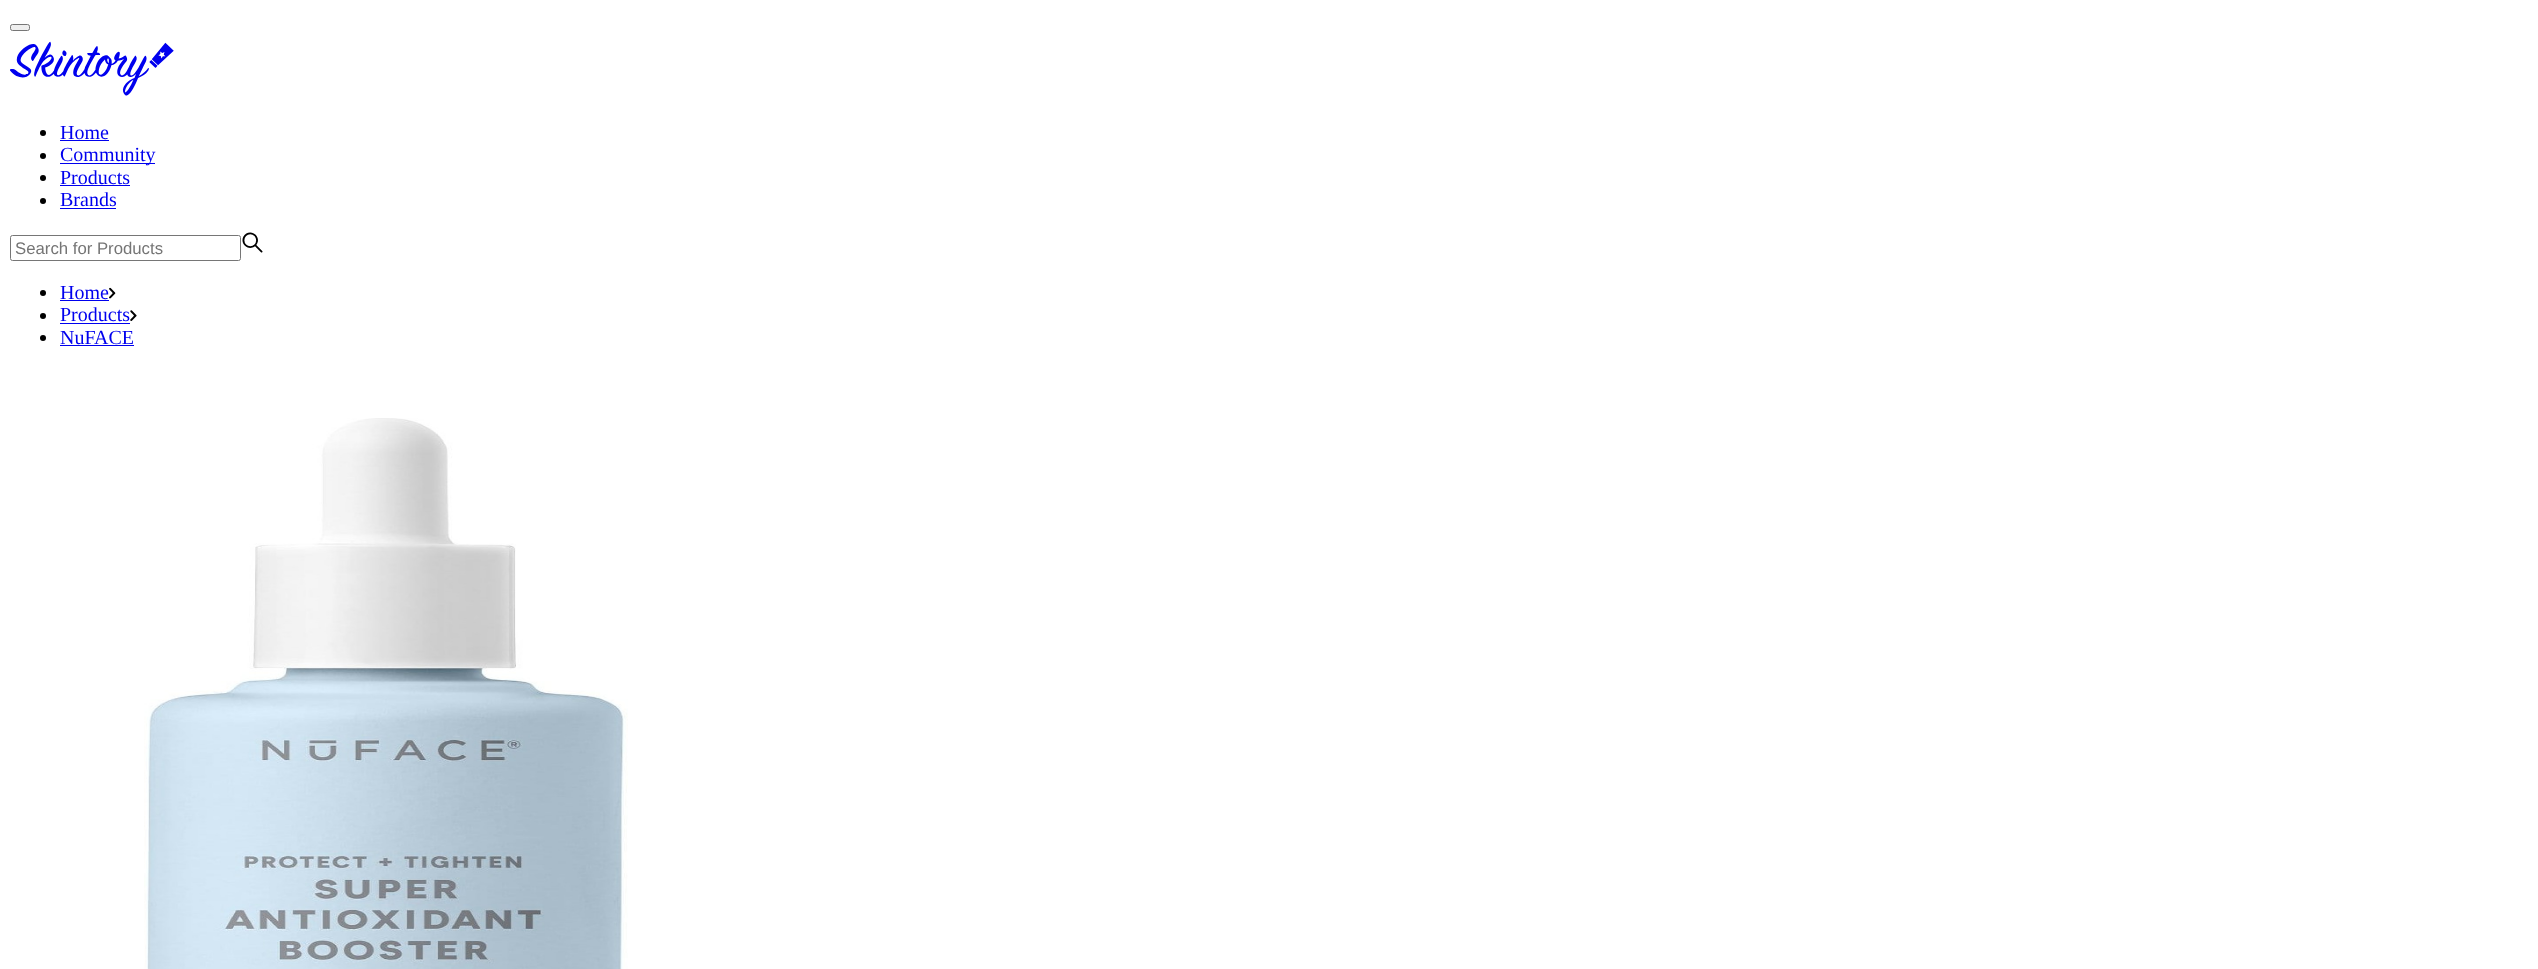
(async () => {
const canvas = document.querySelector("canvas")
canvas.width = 2538
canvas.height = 969
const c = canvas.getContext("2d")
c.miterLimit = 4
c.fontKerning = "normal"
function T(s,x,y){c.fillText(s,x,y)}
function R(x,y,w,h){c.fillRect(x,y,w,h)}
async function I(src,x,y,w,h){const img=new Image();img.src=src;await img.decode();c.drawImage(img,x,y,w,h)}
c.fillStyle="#fff"
R(0,0,2538,969)
c.fillStyle="#efefef"
c.beginPath()
c.roundRect(10.5,24.5,19,6,2)
c.fill()
c.strokeStyle="#767676"
c.stroke()
await I("1.png",10,41,164,55)
c.fillStyle="#000"
c.beginPath()
c.arc(43,133,3,0,7)
c.fill()
c.font="20px Liberation Serif"
c.fillStyle="#00e"
T("Home",60,139)
R(60,140,49,1)
c.fillStyle="#000"
c.beginPath()
c.arc(43,156,3,0,7)
c.fill()
c.fillStyle="#00e"
R(60,163,95,1)
T("Community",60,161)
c.fillStyle="#000"
c.beginPath()
c.arc(43,178,3,0,7)
c.fill()
c.fillStyle="#00e"
T("Products",60,184)
R(60,185,70,1)
c.fillStyle="#000"
c.beginPath()
c.arc(43,201,3,0,7)
c.fill()
c.fillStyle="#00e"
T("Brands",60,206)
R(60,208,56,1)
c.beginPath()
c.roundRect(10.5,235.5,230,25,2)
c.stroke()
c.font="16.75px Liberation Sans"
c.fillStyle="#757575"
T("Search for Products",15,254)
await I("2.png",242,232,21,21)
c.fillStyle="#000"
c.beginPath()
c.arc(43,293,3,0,7)
c.fill()
c.font="20px Liberation Serif"
c.fillStyle="#00e"
T("Home",60,299)
R(60,300,49,1)
await I("3.png",109,287,7,12)
c.fillStyle="#000"
c.beginPath()
c.arc(43,316,3,0,7)
c.fill()
c.fillStyle="#00e"
T("Products",60,321)
R(60,323,70,1)
await I("4.png",130,310,7,11)
c.fillStyle="#000"
c.beginPath()
c.arc(43,338,3,0,7)
c.fill()
c.fillStyle="#00e"
T("NuFACE",60,344)
R(60,345,74,1)
await I("5.png",144,418,484,551)
})()
